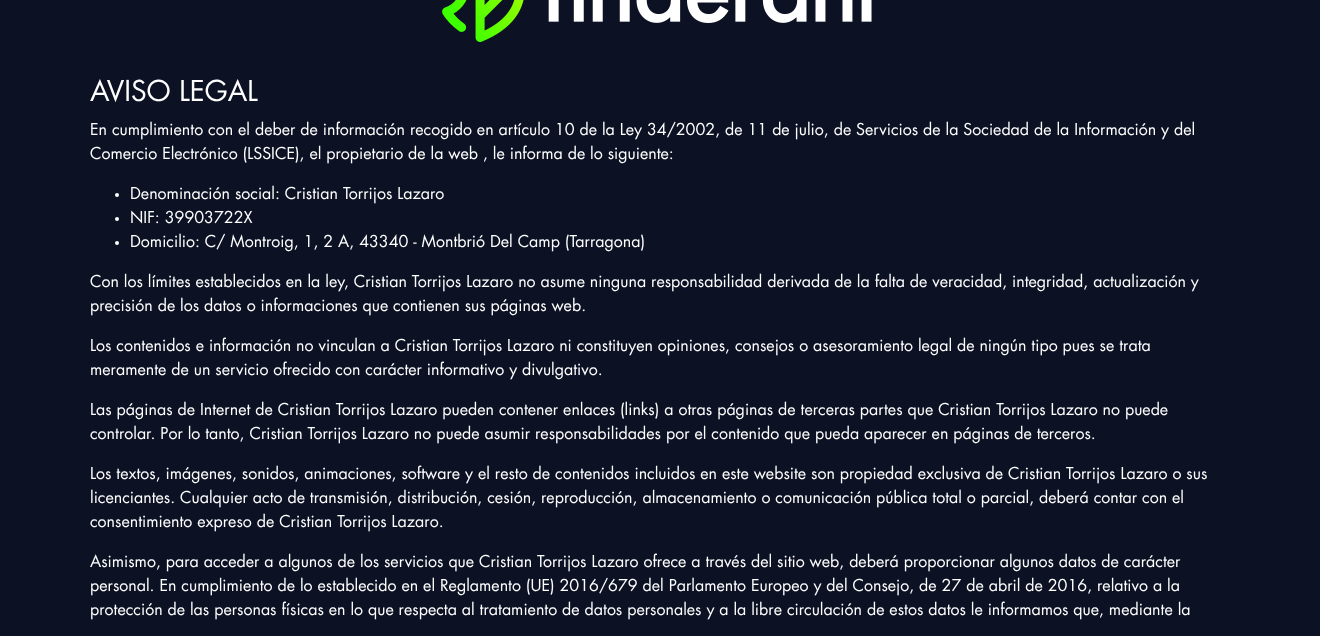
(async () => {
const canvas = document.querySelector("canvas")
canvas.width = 1320
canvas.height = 636
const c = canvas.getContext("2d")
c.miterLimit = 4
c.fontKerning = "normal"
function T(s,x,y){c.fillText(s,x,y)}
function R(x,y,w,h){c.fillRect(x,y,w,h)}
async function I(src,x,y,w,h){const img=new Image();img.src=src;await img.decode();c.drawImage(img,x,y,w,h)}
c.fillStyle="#0c1124"
R(0,0,1320,636)
await I("1.png",442,0,430,42)
c.font="28px Futura"
c.fillStyle="#fff"
T("AVISO LEGAL",90,101)
c.font="16px Futura"
T("En cumplimiento con el deber de información recogido en artículo 10 de la Ley 34/2002, de 11 de julio, de Servicios de la Sociedad de la Información y del",90,135)
T("Comercio Electrónico (LSSICE), el propietario de la web , le informa de lo siguiente:",90,159)
c.beginPath()
c.arc(117,195,2,0,7)
c.fill()
T("Denominación social: Cristian Torrijos Lazaro",130,199)
c.beginPath()
c.arc(117,219,2,0,7)
c.fill()
T("NIF: 39903722X",130,223)
c.beginPath()
c.arc(117,243,2,0,7)
c.fill()
T("Domicilio: C/ Montroig, 1, 2 A, 43340 - Montbrió Del Camp (Tarragona)",130,247)
T("Con los límites establecidos en la ley, Cristian Torrijos Lazaro no asume ninguna responsabilidad derivada de la falta de veracidad, integridad, actualización y",90,287)
T("precisión de los datos o informaciones que contienen sus páginas web.",90,311)
T("Los contenidos e información no vinculan a Cristian Torrijos Lazaro ni constituyen opiniones, consejos o asesoramiento legal de ningún tipo pues se trata",90,351)
T("meramente de un servicio ofrecido con carácter informativo y divulgativo.",90,375)
T("Las páginas de Internet de Cristian Torrijos Lazaro pueden contener enlaces (links) a otras páginas de terceras partes que Cristian Torrijos Lazaro no puede",90,415)
T("controlar. Por lo tanto, Cristian Torrijos Lazaro no puede asumir responsabilidades por el contenido que pueda aparecer en páginas de terceros.",90,439)
T("Los textos, imágenes, sonidos, animaciones, software y el resto de contenidos incluidos en este website son propiedad exclusiva de Cristian Torrijos Lazaro o sus",90,479)
T("licenciantes. Cualquier acto de transmisión, distribución, cesión, reproducción, almacenamiento o comunicación pública total o parcial, deberá contar con el",90,503)
T("consentimiento expreso de Cristian Torrijos Lazaro.",90,527)
T("Asimismo, para acceder a algunos de los servicios que Cristian Torrijos Lazaro ofrece a través del sitio web, deberá proporcionar algunos datos de carácter",90,567)
T("personal. En cumplimiento de lo establecido en el Reglamento (UE) 2016/679 del Parlamento Europeo y del Consejo, de 27 de abril de 2016, relativo a la",90,591)
T("protección de las personas físicas en lo que respecta al tratamiento de datos personales y a la libre circulación de estos datos le informamos que, mediante la",90,615)
})()
